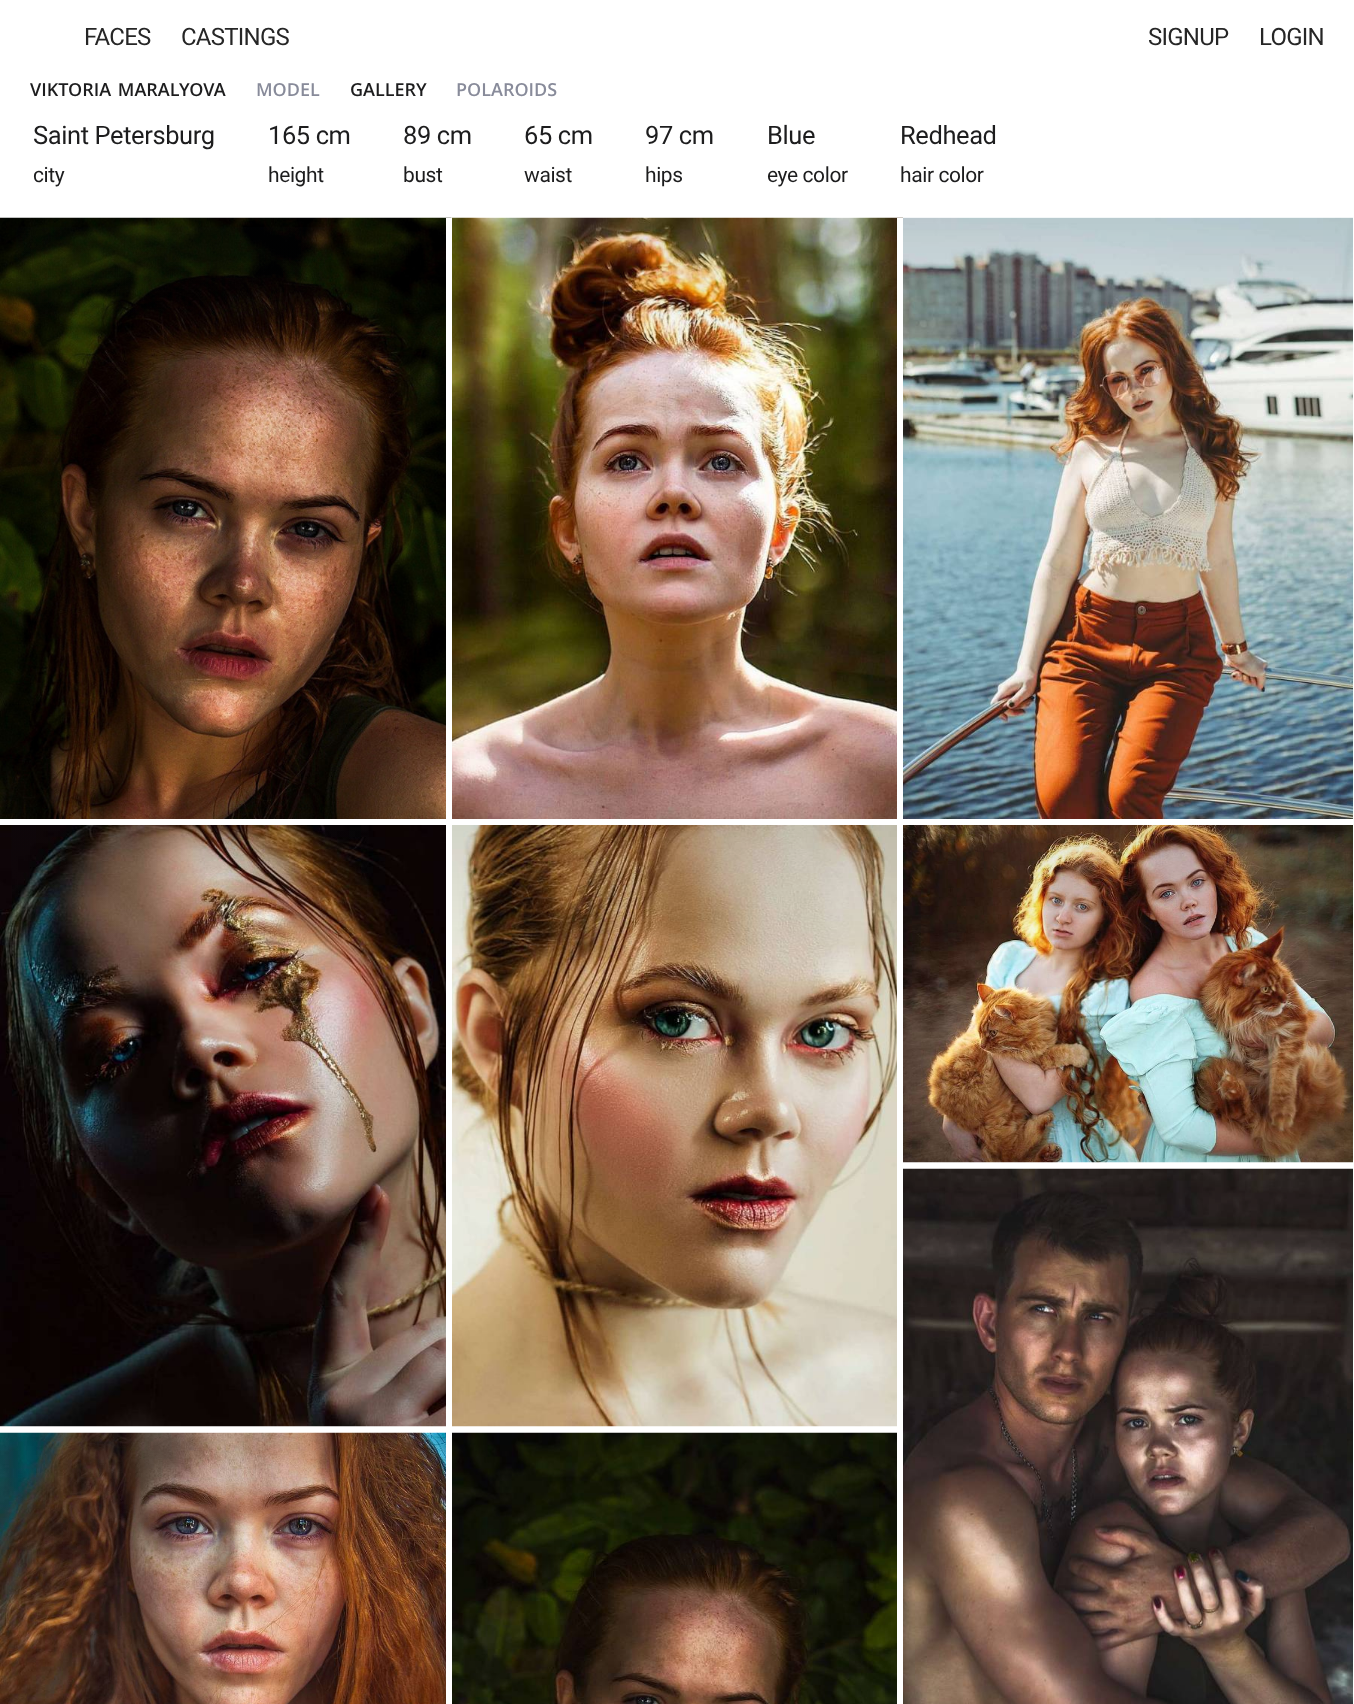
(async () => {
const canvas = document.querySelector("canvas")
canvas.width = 1354
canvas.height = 1704
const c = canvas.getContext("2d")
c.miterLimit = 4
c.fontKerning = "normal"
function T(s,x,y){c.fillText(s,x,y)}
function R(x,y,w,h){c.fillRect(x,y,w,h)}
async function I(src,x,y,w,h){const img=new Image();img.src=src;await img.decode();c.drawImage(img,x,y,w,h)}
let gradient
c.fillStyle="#fff"
R(0,0,1354,1704)
c.letterSpacing="-0.75px"
c.font="24px Roboto"
c.fillStyle="#262626"
T("FACES",84,45)
T("CASTINGS",181,45)
T("SIGNUP",1148,45)
T("LOGIN",1259,45)
c.letterSpacing="0px"
c.wordSpacing="2px"
c.font="600 18px Open Sans"
c.fillStyle="#1d1d1e"
T("VIKTORIA MARALYOVA",30,96)
c.wordSpacing="0px"
c.fillStyle="#888b9a"
T("MODEL",256,96)
c.fillStyle="#1d1d1e"
T("GALLERY",350,96)
c.fillStyle="#888b9a"
T("POLAROIDS",456,96)
c.letterSpacing="-0.4px"
c.font="25.5px Roboto"
c.fillStyle="#1d1d1e"
T("Saint Petersburg",33,144)
c.font="21px Roboto"
T("city",33,182)
c.font="25.5px Roboto"
T("165 cm",268,144)
c.font="21px Roboto"
T("height",268,182)
c.font="25.5px Roboto"
T("89 cm",403,144)
c.font="21px Roboto"
T("bust",403,182)
c.font="25.5px Roboto"
T("65 cm",524,144)
c.font="21px Roboto"
T("waist",524,182)
c.font="25.5px Roboto"
T("97 cm",645,144)
c.font="21px Roboto"
T("hips",645,182)
c.font="25.5px Roboto"
T("Blue",767,144)
c.font="21px Roboto"
T("eye color",767,182)
c.font="25.5px Roboto"
T("Redhead",900,144)
c.font="21px Roboto"
T("hair color",900,182)
await I("1.png",0,217,452,602)
gradient = c.createLinearGradient(226,368,226,218)
gradient.addColorStop(0,"#0c111600")
gradient.addColorStop(1,"#0c11161a")
c.fillStyle = gradient
R(16,227,311,90)
await I("4.png",451,217,452,602)
c.fillStyle="#fff"
R(446,218,6,601)
await I("2.png",0,825,446,602)
gradient = c.createLinearGradient(226,975,226,825)
gradient.addColorStop(0,"#0c111600")
gradient.addColorStop(1,"#0c11161a")
c.fillStyle = gradient
R(11,825,358,118)
await I("3.png",0,1432,446,272)
gradient = c.createLinearGradient(226,1583,226,1433)
gradient.addColorStop(0,"#0c111600")
gradient.addColorStop(1,"#0c11161a")
c.fillStyle = gradient
R(0,1433,446,118)
c.fillStyle="#fff"
R(897,218,6,601)
await I("5.png",452,825,445,602)
await I("6.png",452,1432,445,272)
await I("7.png",903,217,450,602)
await I("8.png",903,825,450,338)
await I("9.png",903,1168,450,536)
})()
